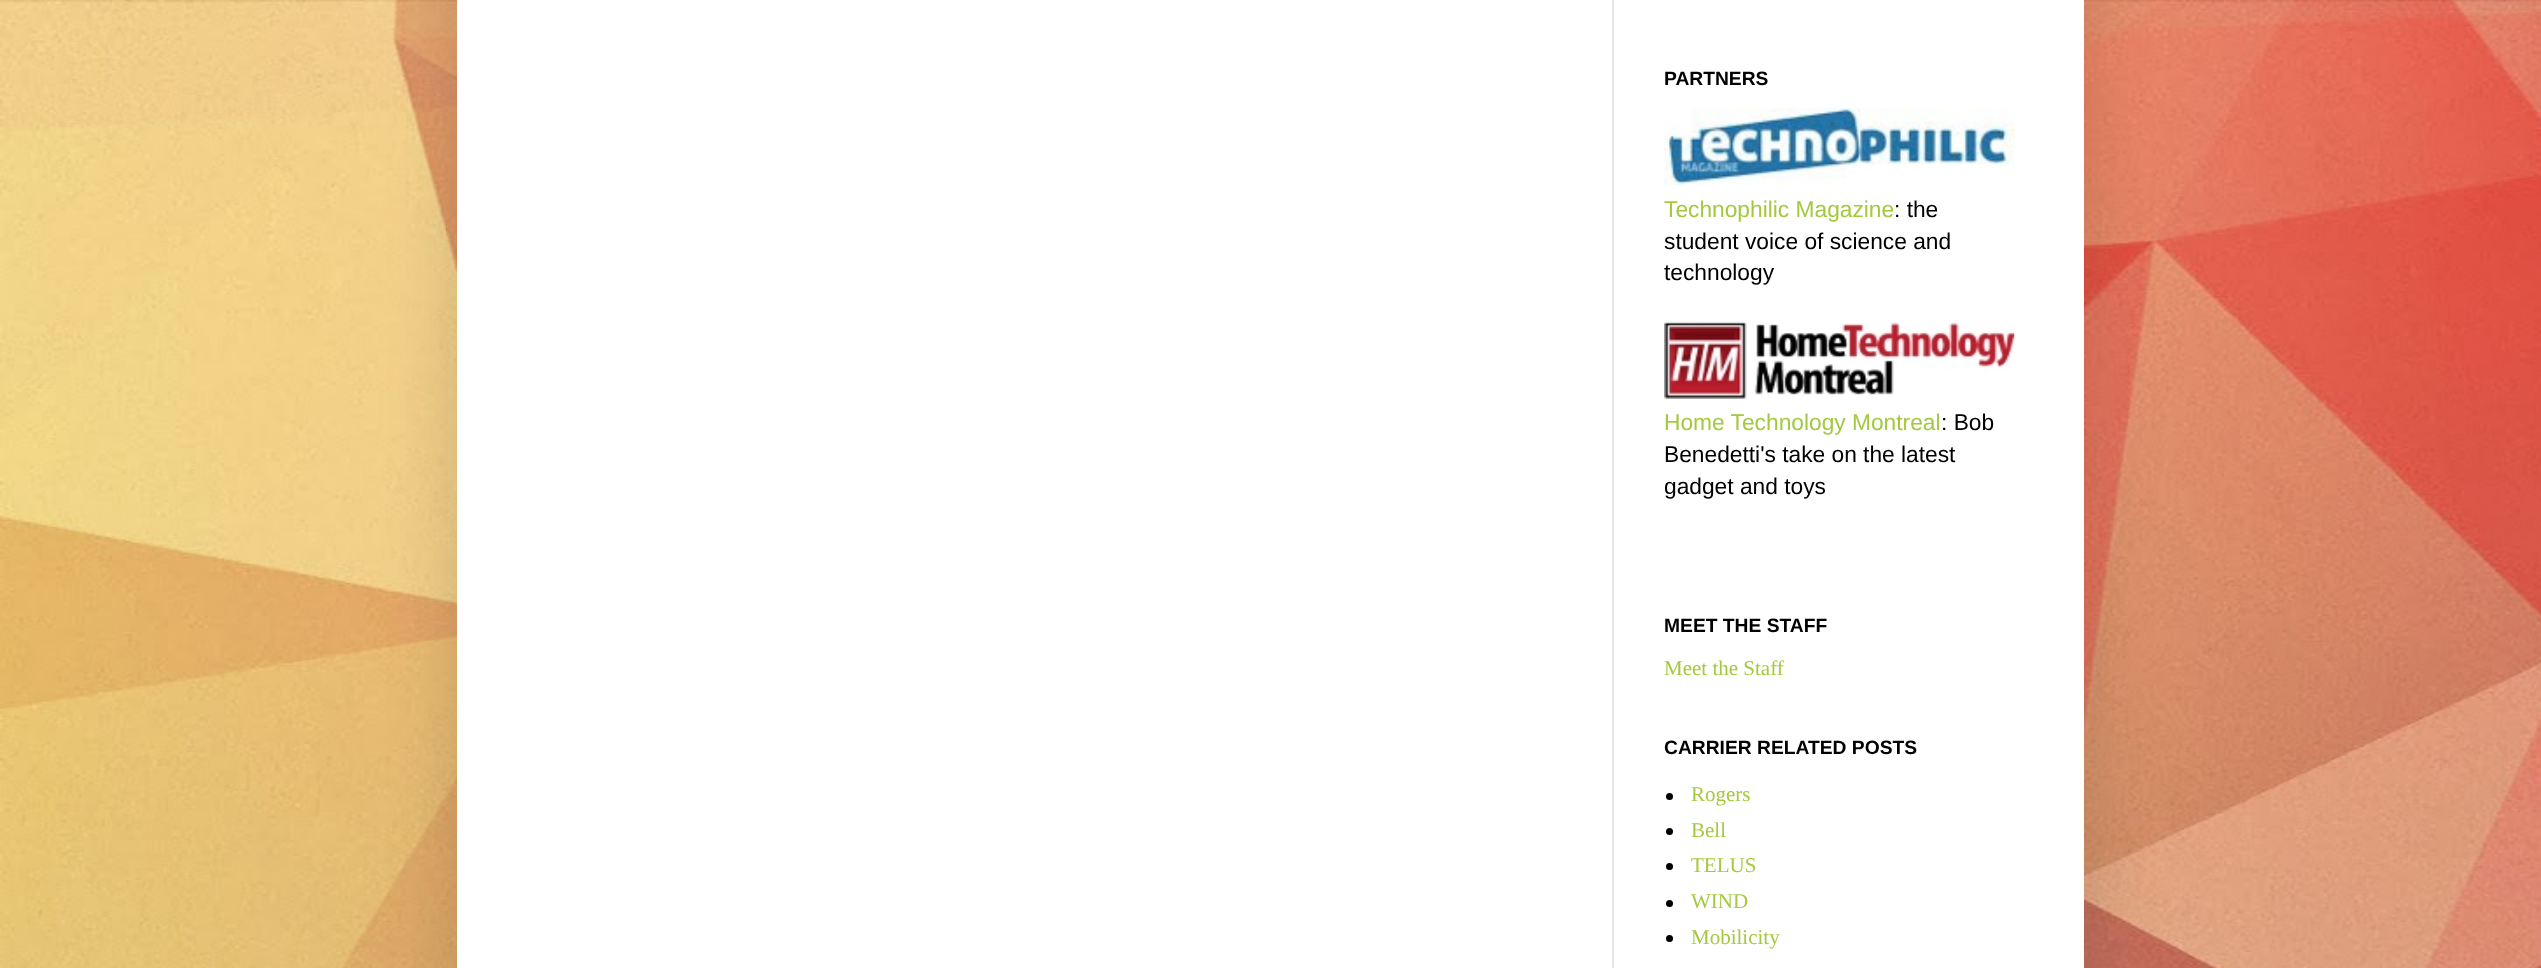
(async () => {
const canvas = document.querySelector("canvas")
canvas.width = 2541
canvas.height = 968
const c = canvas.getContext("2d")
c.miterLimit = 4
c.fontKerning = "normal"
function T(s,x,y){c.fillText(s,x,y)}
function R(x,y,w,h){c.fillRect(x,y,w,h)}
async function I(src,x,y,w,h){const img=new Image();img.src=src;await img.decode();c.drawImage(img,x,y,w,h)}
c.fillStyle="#fff"
R(0,0,2541,968)
await I("1.png",0,0,2541,968)
c.fillStyle="#00000026"
c.filter="blur(35px)"
c.beginPath()
c.rect(457,-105,1627,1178)
c.fill()
c.filter="none"
c.fillStyle="#fff"
R(457,0,1627,968)
c.fillStyle="#e5e5e5"
R(1612,0,2,968)
c.font="bold 19.25px Liberation Sans"
c.fillStyle="#000"
T("PARTNERS",1664,85)
await I("2.png",1664,108,351,78)
c.font="22.75px Liberation Sans"
c.fillStyle="#a4c93e"
T("Technophilic Magazine",1664,217)
c.fillStyle="#000"
T(": the",1894,217)
T("student voice of science and",1664,249)
T("technology",1664,280)
await I("3.png",1664,321,351,78)
c.fillStyle="#a4c93e"
T("Home Technology Montreal",1664,430)
c.fillStyle="#000"
T(": Bob",1941,430)
T("Benedetti's take on the latest",1664,462)
T("gadget and toys",1664,494)
c.font="bold 19.25px Liberation Sans"
T("MEET THE STAFF",1664,632)
c.font="21px Liberation Serif"
c.fillStyle="#a4c93e"
T("Meet the Staff",1664,675)
c.font="bold 19.25px Liberation Sans"
c.fillStyle="#000"
T("CARRIER RELATED POSTS",1664,754)
c.beginPath()
c.arc(1669.5,796.5,3.5,0,7)
c.fill()
c.font="21px Liberation Serif"
c.fillStyle="#a4c93e"
T("Rogers",1691,801)
c.fillStyle="#000"
c.beginPath()
c.arc(1669.5,831.5,3.5,0,7)
c.fill()
c.fillStyle="#a4c93e"
T("Bell",1691,837)
c.fillStyle="#000"
c.beginPath()
c.arc(1669.5,866.5,3.5,0,7)
c.fill()
c.fillStyle="#a4c93e"
T("TELUS",1691,872)
c.fillStyle="#000"
c.beginPath()
c.arc(1669.5,903.5,3.5,0,7)
c.fill()
c.fillStyle="#a4c93e"
T("WIND",1691,908)
c.fillStyle="#000"
c.beginPath()
c.arc(1669.5,938.5,3.5,0,7)
c.fill()
c.fillStyle="#a4c93e"
T("Mobilicity",1691,944)
})()
